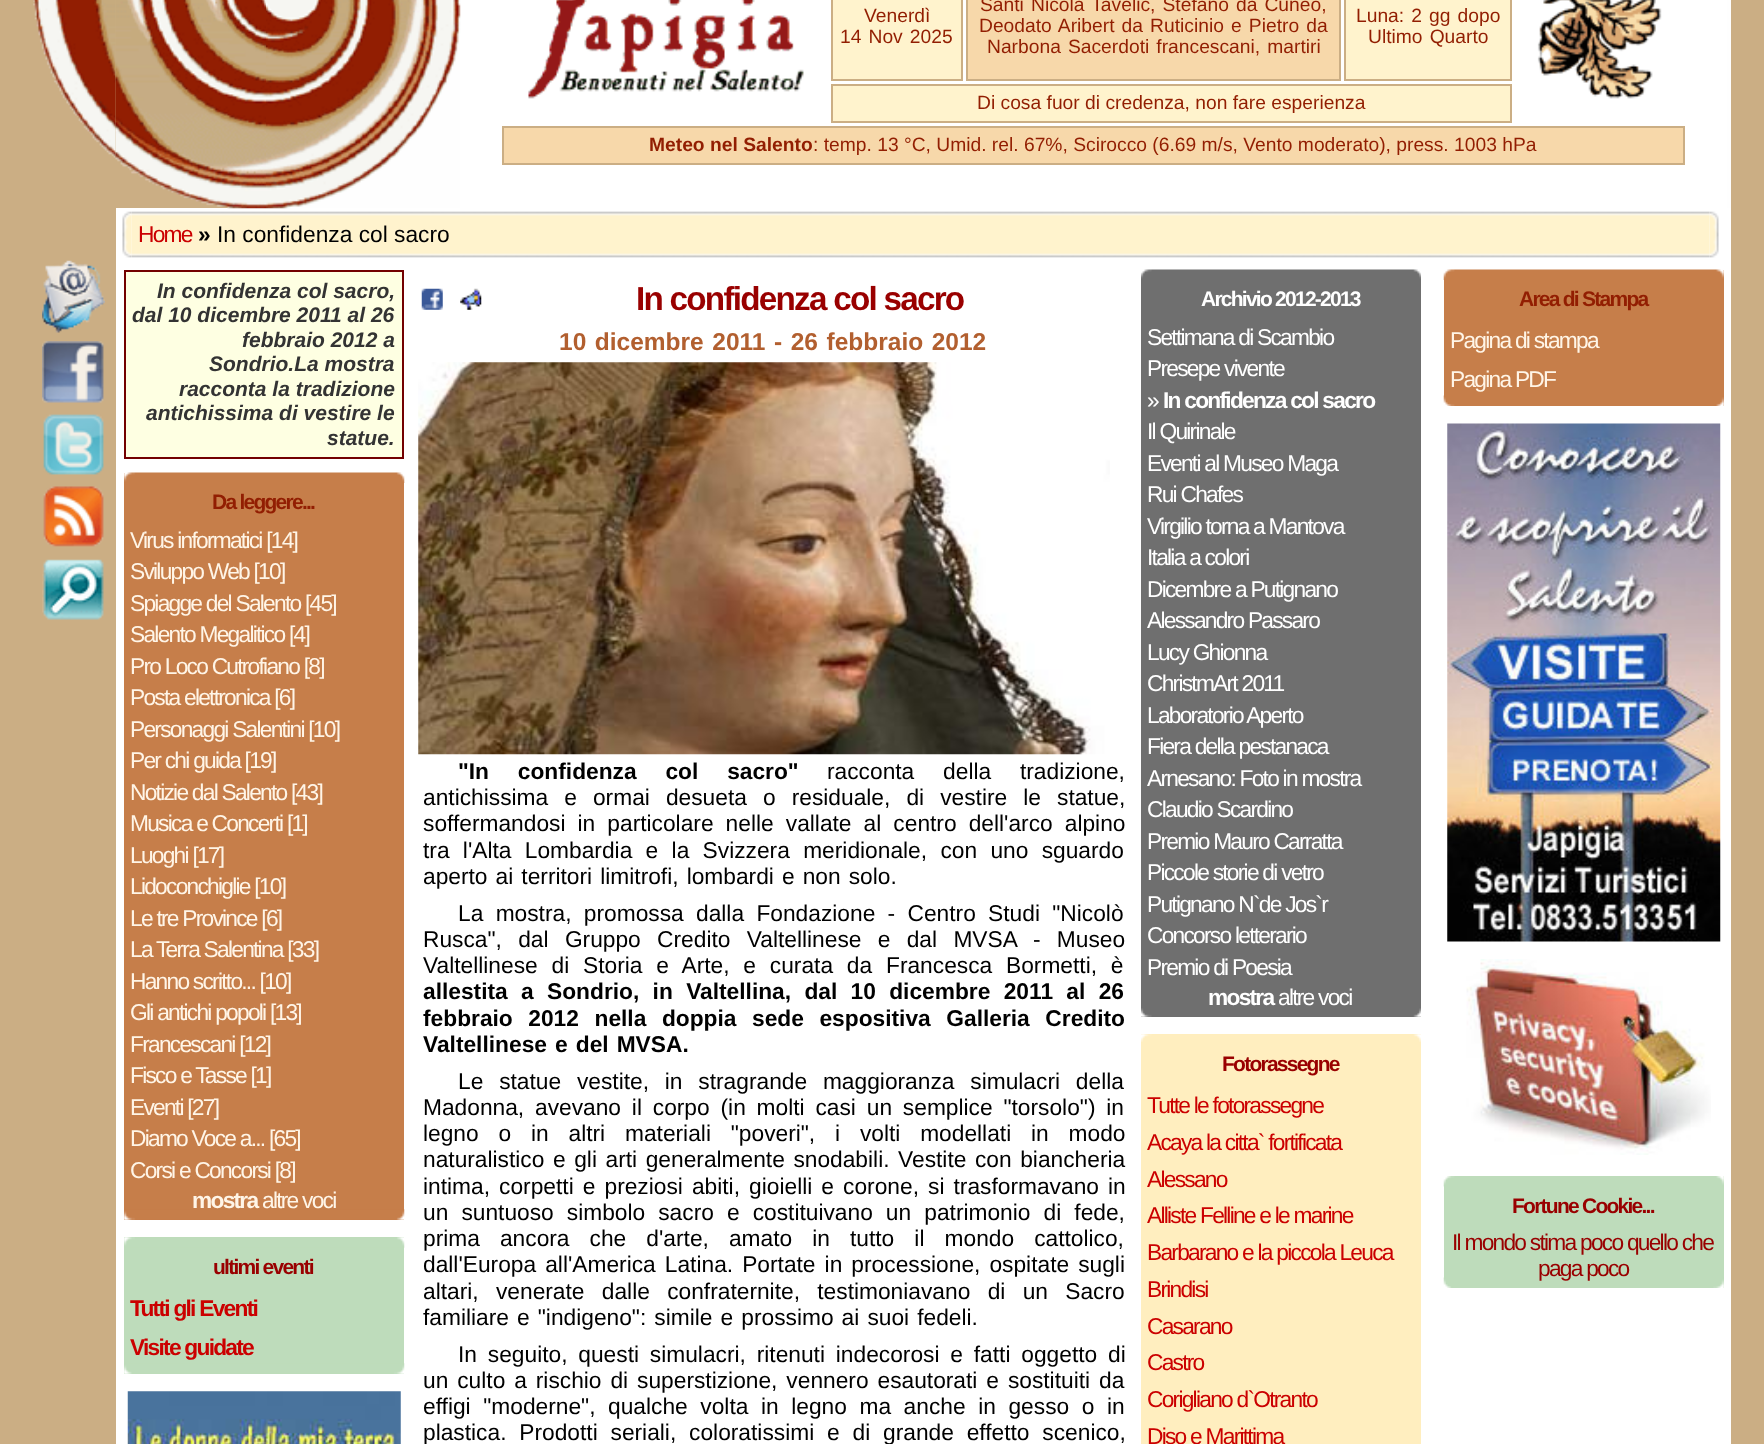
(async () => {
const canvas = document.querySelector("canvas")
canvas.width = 1764
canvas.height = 1444
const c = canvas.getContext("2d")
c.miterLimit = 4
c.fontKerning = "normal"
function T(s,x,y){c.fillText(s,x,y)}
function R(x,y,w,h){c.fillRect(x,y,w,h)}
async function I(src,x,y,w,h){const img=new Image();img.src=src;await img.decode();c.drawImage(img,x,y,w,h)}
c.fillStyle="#cbae84"
R(0,0,1764,1444)
await I("1.png",33,0,83,158)
c.fillStyle="#fefefe"
R(1727,0,4,208)
c.fillStyle="#fff"
R(116,208,1615,1236)
await I("2.png",115,0,151,209)
R(460,0,1267,208)
await I("3.png",266,0,195,209)
await I("4.png",528,0,276,99)
c.fillStyle="#fff3cd"
c.beginPath()
c.rect(832,-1,130,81)
c.fill()
c.strokeStyle="#cbae84"
c.lineWidth=2
c.stroke()
c.font="19.25px Liberation Sans"
c.fillStyle="#921e02"
T("Venerdì",864,22)
c.wordSpacing="1.75px"
T("14 Nov 2025",840,43)
c.fillStyle="#f7d8aa"
c.beginPath()
c.rect(967,-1,373,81)
c.fill()
c.stroke()
c.fillStyle="#921e02"
T("Santi Nicola Tavelic, Stefano da Cuneo,",980,11)
T("Deodato Aribert da Ruticinio e Pietro da",979,32)
T("Narbona Sacerdoti francescani, martiri",987,53)
c.fillStyle="#fff3cd"
c.beginPath()
c.rect(1345,-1,166,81)
c.fill()
c.stroke()
c.fillStyle="#921e02"
T("Luna: 2 gg dopo",1356,22)
T("Ultimo Quarto",1368,43)
await I("5.png",1537,0,125,99)
c.fillStyle="#fff3cd"
c.beginPath()
c.rect(832,85,679,37)
c.fill()
c.stroke()
c.wordSpacing="0px"
c.fillStyle="#921e02"
T("Di cosa fuor di credenza, non fare esperienza",977,109)
c.fillStyle="#f7d8aa"
c.beginPath()
c.rect(503,127,1181,37)
c.fill()
c.stroke()
c.font="bold 19.25px Liberation Sans"
c.fillStyle="#921e02"
T("Meteo nel Salento",649,151)
c.font="19.25px Liberation Sans"
T(": temp. 13 °C, Umid. rel. 67%, Scirocco (6.69 m/s, Vento moderato), press. 1003 hPa",813,151)
await I("6.png",122,211,9,47)
await I("7.png",131,211,1579,47)
c.letterSpacing="-1.75px"
c.font="22.75px Liberation Sans"
c.fillStyle="#cb0000"
T("Home",138,242)
c.letterSpacing="0px"
c.font="bold 22.75px Liberation Sans"
c.fillStyle="#000"
T("»",198,242)
c.font="22.75px Liberation Sans"
T("In confidenza col sacro",217,242)
await I("8.png",1710,211,9,47)
await I("9.png",42,260,63,73)
await I("10.png",42,341,62,62)
await I("11.png",43,414,61,61)
await I("12.png",43,486,61,61)
await I("13.png",42,559,62,61)
c.fillStyle="#feffe2"
c.beginPath()
c.rect(125,271,278,187)
c.fill()
c.strokeStyle="#730000"
c.stroke()
c.font="italic bold 21px Liberation Sans"
c.fillStyle="#333"
T("In confidenza col sacro,",157,298)
T("dal 10 dicembre 2011 al 26",132,322)
T("febbraio 2012 a",242,347)
T("Sondrio.La mostra",209,371)
T("racconta la tradizione",179,396)
T("antichissima di vestire le",146,420)
T("statue.",327,445)
c.fillStyle="#c67e4a"
R(124,473,280,747)
await I("14.png",124,1209,281,11)
await I("15.png",124,472,281,11)
c.letterSpacing="-1.75px"
c.font="bold 21px Liberation Sans"
c.fillStyle="#921e02"
T("Da leggere...",212,509)
c.font="22.75px Liberation Sans"
c.fillStyle="#fff5e7"
T("Virus informatici [14]",130,548)
T("Sviluppo Web [10]",130,579)
T("Spiagge del Salento [45]",130,611)
T("Salento Megalitico [4]",130,642)
T("Pro Loco Cutrofiano [8]",130,674)
T("Posta elettronica [6]",130,705)
T("Personaggi Salentini [10]",130,737)
T("Per chi guida [19]",130,768)
T("Notizie dal Salento [43]",130,800)
T("Musica e Concerti [1]",130,831)
T("Luoghi [17]",130,863)
T("Lidoconchiglie [10]",130,894)
T("Le tre Province [6]",130,926)
T("La Terra Salentina [33]",130,957)
T("Hanno scritto... [10]",130,989)
T("Gli antichi popoli [13]",130,1020)
T("Francescani [12]",130,1052)
T("Fisco e Tasse [1]",130,1083)
T("Eventi [27]",130,1115)
T("Diamo Voce a... [65]",130,1146)
T("Corsi e Concorsi [8]",130,1178)
c.font="bold 22.75px Liberation Sans"
T("mostra",192,1208)
c.font="22.75px Liberation Sans"
T("altre voci",262,1208)
c.fillStyle="#bedcbb"
R(124,1237,280,137)
await I("16.png",124,1363,281,11)
await I("17.png",124,1237,281,11)
c.font="bold 21px Liberation Sans"
c.fillStyle="#900"
T("ultimi eventi",213,1274)
c.font="bold 22.75px Liberation Sans"
c.fillStyle="#cb0000"
T("Tutti gli Eventi",130,1316)
T("Visite guidate",130,1355)
await I("18.png",127,1391,274,53)
await I("19.png",421,288,22,22)
await I("20.png",460,288,22,22)
c.font="bold 33.25px Liberation Sans"
c.fillStyle="#900"
T("In confidenza col sacro",636,310)
c.letterSpacing="0px"
c.wordSpacing="1.75px"
c.font="bold 24.5px Liberation Sans"
c.fillStyle="#b25f2f"
T("10 dicembre 2011 - 26 febbraio 2012",559,350)
await I("21.png",418,362,692,393)
c.wordSpacing="22.5px"
c.font="bold 22.75px Liberation Sans"
c.fillStyle="#000"
T("\"In confidenza col sacro\"",458,779)
c.font="22.75px Liberation Sans"
T("racconta della tradizione,",827,779)
c.wordSpacing="9.75px"
T("antichissima e ormai desueta o residuale, di vestire le statue,",423,805)
c.wordSpacing="5.75px"
T("soffermandosi in particolare nelle vallate al centro dell'arco alpino",423,831)
c.wordSpacing="7px"
T("tra l'Alta Lombardia e la Svizzera meridionale, con uno sguardo",423,858)
c.wordSpacing="1.75px"
T("aperto ai territori limitrofi, lombardi e non solo.",423,884)
c.wordSpacing="6px"
T("La mostra, promossa dalla Fondazione - Centro Studi \"Nicolò",458,921)
c.wordSpacing="10px"
T("Rusca\", dal Gruppo Credito Valtellinese e dal MVSA - Museo",423,947)
c.wordSpacing="7.5px"
T("Valtellinese di Storia e Arte, e curata da Francesca Bormetti, è",423,973)
c.wordSpacing="7px"
c.font="bold 22.75px Liberation Sans"
T("allestita a Sondrio, in Valtellina, dal 10 dicembre 2011 al 26",423,999)
c.wordSpacing="9.25px"
T("febbraio 2012 nella doppia sede espositiva Galleria Credito",423,1026)
c.wordSpacing="1.75px"
T("Valtellinese e del MVSA.",423,1052)
c.wordSpacing="9.5px"
c.font="22.75px Liberation Sans"
T("Le statue vestite, in stragrande maggioranza simulacri della",458,1089)
c.wordSpacing="4.5px"
T("Madonna, avevano il corpo (in molti casi un semplice \"torsolo\") in",423,1115)
c.wordSpacing="13.5px"
T("legno o in altri materiali \"poveri\", i volti modellati in modo",423,1141)
c.wordSpacing="2.25px"
T("naturalistico e gli arti generalmente snodabili. Vestite con biancheria",423,1167)
c.wordSpacing="2.75px"
T("intima, corpetti e preziosi abiti, gioielli e corone, si trasformavano in",423,1194)
c.wordSpacing="6.75px"
T("un suntuoso simbolo sacro e costituivano un patrimonio di fede,",423,1220)
c.wordSpacing="13.75px"
T("prima ancora che d'arte, amato in tutto il mondo cattolico,",423,1246)
c.wordSpacing="2.75px"
T("dall'Europa all'America Latina. Portate in processione, ospitate sugli",423,1272)
c.wordSpacing="11px"
T("altari, venerate dalle confraternite, testimoniavano di un Sacro",423,1299)
c.wordSpacing="1.75px"
T("familiare e \"indigeno\": simile e prossimo ai suoi fedeli.",423,1325)
c.wordSpacing="4.5px"
T("In seguito, questi simulacri, ritenuti indecorosi e fatti oggetto di",458,1362)
c.wordSpacing="2.6px"
T("un culto a rischio di superstizione, vennero esautorati e sostituiti da",423,1388)
c.wordSpacing="6.25px"
T("effigi \"moderne\", qualche volta in legno ma anche in gesso o in",423,1414)
c.wordSpacing="6.5px"
T("plastica. Prodotti seriali, coloratissimi e di grande effetto scenico,",423,1440)
c.fillStyle="#6f6f6f"
R(1141,279,280,738)
await I("22.png",1141,1008,280,9)
await I("23.png",1141,269,280,10)
c.letterSpacing="-1.75px"
c.wordSpacing="0px"
c.font="bold 21px Liberation Sans"
c.fillStyle="#fff"
T("Archivio 2012-2013",1201,306)
c.font="22.75px Liberation Sans"
T("Settimana di Scambio",1147,345)
T("Presepe vivente",1147,376)
T("»",1147,408)
c.font="bold 22.75px Liberation Sans"
T("In confidenza col sacro",1163,408)
c.font="22.75px Liberation Sans"
T("Il Quirinale",1147,439)
T("Eventi al Museo Maga",1147,471)
T("Rui Chafes",1147,502)
T("Virgilio torna a Mantova",1147,534)
T("Italia a colori",1147,565)
T("Dicembre a Putignano",1147,597)
T("Alessandro Passaro",1147,628)
T("Lucy Ghionna",1147,660)
T("ChristmArt 2011",1147,691)
T("Laboratorio Aperto",1147,723)
T("Fiera della pestanaca",1147,754)
T("Arnesano: Foto in mostra",1147,786)
T("Claudio Scardino",1147,817)
T("Premio Mauro Carratta",1147,849)
T("Piccole storie di vetro",1147,880)
T("Putignano N`de Jos`r",1147,912)
T("Concorso letterario",1147,943)
T("Premio di Poesia",1147,975)
c.font="bold 22.75px Liberation Sans"
T("mostra",1208,1005)
c.font="22.75px Liberation Sans"
T("altre voci",1278,1005)
c.fillStyle="#ffeebf"
R(1141,1034,280,410)
await I("24.png",1141,1034,280,8)
c.font="bold 21px Liberation Sans"
c.fillStyle="#900"
T("Fotorassegne",1222,1071)
c.font="22.75px Liberation Sans"
c.fillStyle="#cb0000"
T("Tutte le fotorassegne",1147,1113)
T("Acaya la citta` fortificata",1147,1150)
T("Alessano",1147,1187)
T("Alliste Felline e le marine",1147,1223)
T("Barbarano e la piccola Leuca",1147,1260)
T("Brindisi",1147,1297)
T("Casarano",1147,1334)
T("Castro",1147,1370)
T("Corigliano d`Otranto",1147,1407)
T("Diso e Marittima",1147,1444)
c.fillStyle="#c67e4a"
R(1444,270,280,136)
await I("25.png",1443,395,281,11)
await I("26.png",1443,269,281,11)
c.font="bold 21px Liberation Sans"
c.fillStyle="#921e02"
T("Area di Stampa",1519,306)
c.font="22.75px Liberation Sans"
c.fillStyle="#fff5e7"
T("Pagina di stampa",1450,348)
T("Pagina PDF",1450,387)
await I("27.png",1447,423,274,519)
await I("28.png",1466,959,245,196)
c.fillStyle="#bedcbb"
R(1444,1176,280,112)
await I("29.png",1443,1277,281,11)
await I("30.png",1443,1176,281,11)
c.font="bold 21px Liberation Sans"
c.fillStyle="#900"
T("Fortune Cookie...",1512,1213)
c.font="22.75px Liberation Sans"
T("Il mondo stima poco quello che",1452,1250)
T("paga poco",1538,1276)
})()
